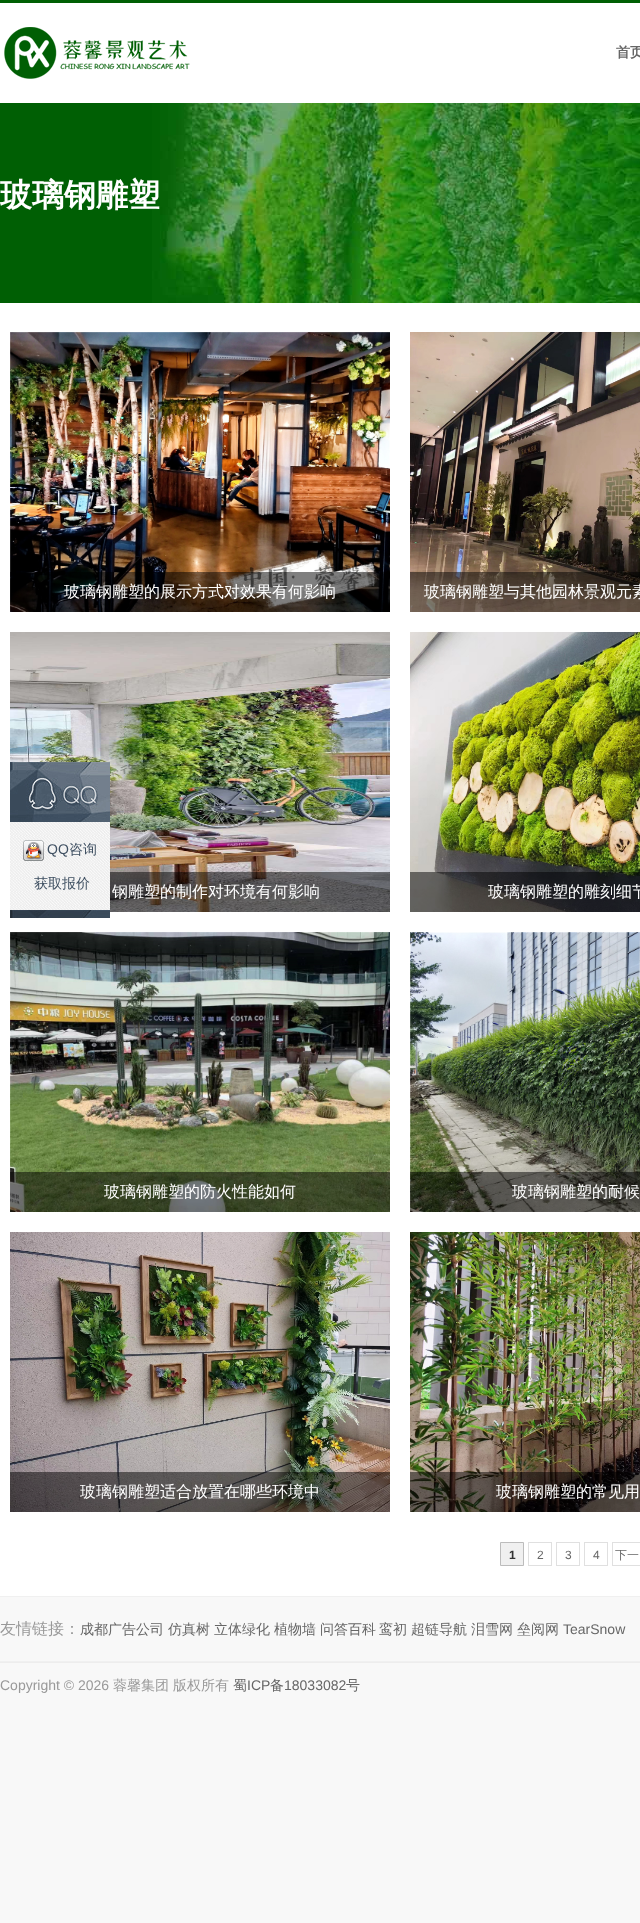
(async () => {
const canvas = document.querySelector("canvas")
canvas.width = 640
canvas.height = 1923
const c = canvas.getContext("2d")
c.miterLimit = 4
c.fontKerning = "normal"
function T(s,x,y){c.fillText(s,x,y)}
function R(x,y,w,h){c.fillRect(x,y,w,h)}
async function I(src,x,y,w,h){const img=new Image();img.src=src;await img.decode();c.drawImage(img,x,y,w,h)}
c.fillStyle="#f8f8f8"
R(0,0,640,1923)
c.fillStyle="#fff"
R(0,3,640,100)
c.fillStyle="#005f04"
R(0,0,640,3)
await I("1.png",4,27,186,52)
c.font="bold 14px WenQuanYi Zen Hei"
c.fillStyle="#666"
T("首页",616,57)
c.fillStyle="#005f04"
R(0,103,152,200)
await I("2.png",152,103,488,200)
c.font="bold 32px WenQuanYi Zen Hei"
c.fillStyle="#fff"
T("玻璃钢雕塑",0,206)
R(0,303,640,1293)
await I("3.png",10,332,380,280)
c.fillStyle="#00000080"
R(10,572,380,40)
c.font="500 16px WenQuanYi Zen Hei"
c.fillStyle="#fff"
T("玻璃钢雕塑的展示方式对效果有何影响",64,597)
await I("4.png",410,332,230,280)
c.fillStyle="#00000080"
R(410,572,230,40)
c.fillStyle="#fff"
T("玻璃钢雕塑与其他园林景观元素",424,597)
await I("5.png",10,632,380,280)
c.fillStyle="#00000080"
R(110,872,280,40)
c.fillStyle="#fff"
T("钢雕塑的制作对环境有何影响",112,897)
await I("6.png",410,632,230,280)
c.fillStyle="#00000080"
R(410,872,230,40)
c.fillStyle="#fff"
T("玻璃钢雕塑的雕刻细节",488,897)
await I("7.png",10,932,380,280)
c.fillStyle="#00000080"
R(10,1172,380,40)
c.fillStyle="#fff"
T("玻璃钢雕塑的防火性能如何",104,1197)
await I("8.png",410,932,230,280)
c.fillStyle="#00000080"
R(410,1172,230,40)
c.fillStyle="#fff"
T("玻璃钢雕塑的耐候",512,1197)
await I("9.png",10,1232,380,280)
c.fillStyle="#00000080"
R(10,1472,380,40)
c.fillStyle="#fff"
T("玻璃钢雕塑适合放置在哪些环境中",80,1497)
await I("10.png",410,1232,230,280)
c.fillStyle="#00000080"
R(410,1472,230,40)
c.fillStyle="#fff"
T("玻璃钢雕塑的常见用",496,1497)
c.fillStyle="#f0f0f0"
c.beginPath()
c.rect(500.5,1542.5,23,23)
c.fill()
c.strokeStyle="#bcbcbc"
c.stroke()
c.font="bold 12px Liberation Sans"
c.fillStyle="#333"
T("1",509,1559)
c.strokeStyle="#e0e0e0"
c.strokeRect(528.5,1542.5,23,23)
c.font="12px Liberation Sans"
c.fillStyle="#666"
T("2",537,1559)
c.strokeRect(556.5,1542.5,23,23)
T("3",565,1559)
c.strokeRect(584.5,1542.5,23,23)
T("4",593,1559)
c.strokeRect(612.5,1542.5,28,23)
c.font="500 12px WenQuanYi Zen Hei"
T("下一",615,1559)
await I("11.png",10,762,100,60)
await I("12.png",10,822,100,88)
await I("13.png",23,840,21,21)
c.font="14px Liberation Sans"
c.fillStyle="#3e4f61"
T("QQ",47,854)
c.font="500 14px WenQuanYi Zen Hei"
T("咨询",69,854)
T("获取报价",34,888)
await I("14.png",10,910,100,8)
c.fillStyle="#f0f0f0"
R(0,1596,640,1)
R(0,1661,640,1)
c.font="500 16px WenQuanYi Zen Hei"
c.fillStyle="#999"
T("友情链接：",0,1634)
c.font="500 14px WenQuanYi Zen Hei"
c.fillStyle="#666"
T("成都广告公司",80,1634)
T("仿真树",168,1634)
T("立体绿化",214,1634)
T("植物墙",274,1634)
T("问答百科",320,1634)
T("鸾初",379,1634)
T("超链导航",411,1634)
T("泪雪网",471,1634)
T("垒阅网",517,1634)
c.font="14px Liberation Sans"
T("TearSnow",563,1634)
c.fillStyle="#ededed"
R(0,1662,640,1)
c.fillStyle="#999"
T("Copyright © 2026",0,1690)
c.font="500 14px WenQuanYi Zen Hei"
T("蓉馨集团",113,1690)
T("版权所有",173,1690)
c.fillStyle="#666"
T("蜀",233,1690)
c.font="14px Liberation Sans"
T("ICP",247,1690)
c.font="500 14px WenQuanYi Zen Hei"
T("备",270,1690)
c.font="14px Liberation Sans"
T("18033082",284,1690)
c.font="500 14px WenQuanYi Zen Hei"
T("号",346,1690)
})()
